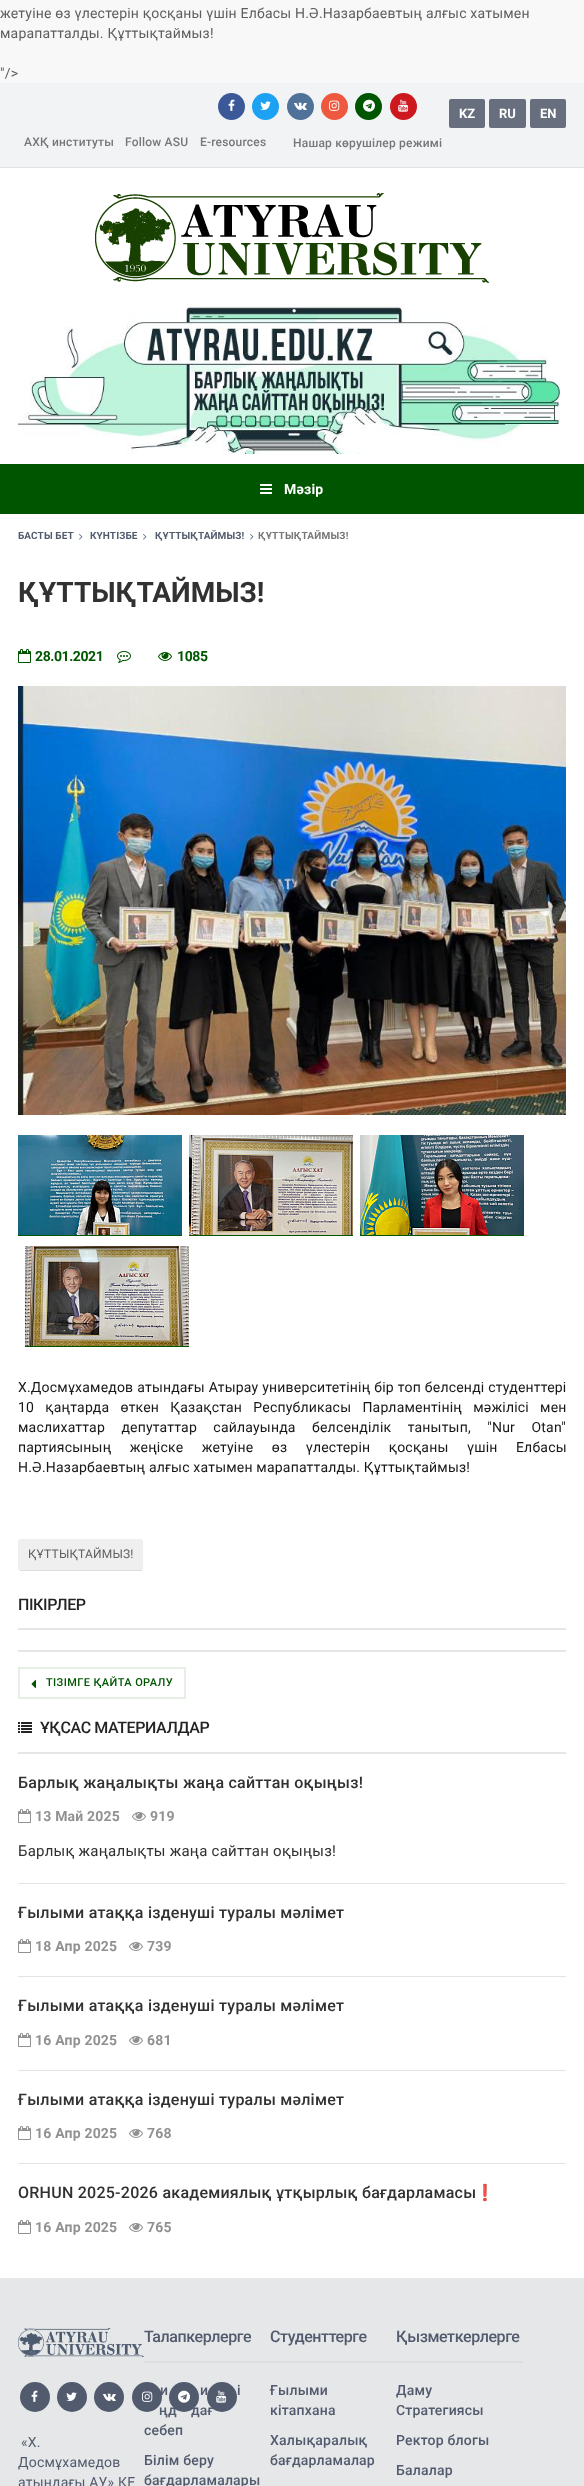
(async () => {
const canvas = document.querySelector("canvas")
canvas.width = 584
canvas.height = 2486
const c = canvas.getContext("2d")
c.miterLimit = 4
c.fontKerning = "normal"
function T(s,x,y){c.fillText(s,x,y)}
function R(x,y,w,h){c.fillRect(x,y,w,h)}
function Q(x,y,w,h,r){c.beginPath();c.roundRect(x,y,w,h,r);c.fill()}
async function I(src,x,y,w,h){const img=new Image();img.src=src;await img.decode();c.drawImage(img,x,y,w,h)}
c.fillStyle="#f8f8f8"
R(0,0,584,2486)
c.letterSpacing="0.2px"
c.font="14px Roboto"
c.fillStyle="#5e5e5e"
T("жетуіне өз үлестерін қосқаны үшін Елбасы Н.Ә.Назарбаевтың алғыс хатымен",0,18)
T("марапатталды. Құттықтаймыз!",0,38)
T("\"/>",0,78)
c.fillStyle="#fff"
R(0,168,584,2110)
c.fillStyle="#f2f3f5"
R(0,83,584,84)
c.fillStyle="#e4e3e2"
R(0,167,584,1)
c.fillStyle="#3b5998"
c.beginPath()
c.arc(231.5,106.5,13.5,0,7)
c.fill()
await I("1.png",228,99,7,12)
c.fillStyle="#1da1f2"
c.beginPath()
c.arc(265.5,106.5,13.5,0,7)
c.fill()
await I("2.png",260,101,11,9)
c.fillStyle="#507299"
c.beginPath()
c.arc(300.5,106.5,13.5,0,7)
c.fill()
await I("3.png",294,102,13,8)
c.fillStyle="#ee583f"
c.beginPath()
c.arc(334.5,106.5,13.5,0,7)
c.fill()
await I("4.png",329,100,11,11)
c.fillStyle="#050"
c.beginPath()
c.arc(368.5,106.5,13.5,0,7)
c.fill()
await I("5.png",363,99,12,13)
c.fillStyle="#cc181e"
c.beginPath()
c.arc(403.5,106.5,13.5,0,7)
c.fill()
await I("6.png",398,99,11,13)
c.fillStyle="#676e7d"
Q(449,99,36,29,2)
c.letterSpacing="0px"
c.font="bold 13px Roboto"
c.fillStyle="#fff"
T("KZ",459,118)
c.fillStyle="#676e7d"
Q(489,99,37,29,2)
c.fillStyle="#fff"
T("RU",499,118)
c.fillStyle="#676e7d"
Q(530,99,36,29,2)
c.fillStyle="#fff"
T("EN",540,118)
c.letterSpacing="0.2px"
c.font="500 12px Roboto"
c.fillStyle="#777"
T("АХҚ институты",24,146)
T("Follow ASU",125,146)
T("E-resources",200,146)
T("Нашар көрушілер режимі",293,147)
await I("7.png",95,193,394,90)
await I("8.png",18,303,543,151)
c.fillStyle="#050"
R(0,464,584,50)
await I("9.png",260,484,12,10)
c.font="bold 14px Roboto"
c.fillStyle="#fff"
T("Мәзір",284,494)
c.letterSpacing="0.1px"
c.font="bold 10px Roboto"
c.fillStyle="#525b6e"
T("БАСТЫ БЕТ",18,539)
await I("10.png",79,534,4,6)
T("КҮНТІЗБЕ",90,539)
await I("10.png",143,534,4,6)
T("ҚҰТТЫҚТАЙМЫЗ!",155,539)
await I("10.png",250,534,4,6)
c.letterSpacing="0.2px"
c.fillStyle="#777"
T("ҚҰТТЫҚТАЙМЫЗ!",258,539)
c.letterSpacing="0px"
c.font="bold 28px Roboto"
c.fillStyle="#313131"
T("ҚҰТТЫҚТАЙМЫЗ!",18,602)
await I("11.png",18,649,13,14)
c.letterSpacing="-0.4px"
c.font="bold 14px Roboto"
c.fillStyle="#050"
T("28.01.2021",35,661)
await I("12.png",117,651,14,12)
await I("13.png",158,652,14,9)
T("1085",177,661)
await I("14.png",18,686,548,429)
R(18,1235,164,1)
await I("15.png",18,1135,164,100)
R(189,1235,164,1)
await I("16.png",189,1135,164,100)
R(360,1235,164,1)
await I("17.png",360,1135,164,100)
R(25,1346,164,1)
await I("18.png",25,1246,164,100)
c.letterSpacing="0.2px"
c.wordSpacing="0.25px"
c.font="14px Roboto"
c.fillStyle="#171717"
T("Х.Досмұхамедов атындағы Атырау университетінің бір топ белсенді студенттері",18,1392)
c.wordSpacing="7.5px"
T("10 қаңтарда өткен Қазақстан Республикасы Парламентінің мәжілісі мен",18,1412)
c.wordSpacing="12.75px"
T("маслихаттар депутаттар сайлауында белсенділік танытып, \"Nur Otan\"",18,1432)
c.wordSpacing="14.75px"
T("партиясының жеңіске жетуіне өз үлестерін қосқаны үшін Елбасы",18,1452)
c.wordSpacing="0px"
T("Н.Ә.Назарбаевтың алғыс хатымен марапатталды. Құттықтаймыз!",18,1472)
c.fillStyle="#efefef"
Q(18,1539,125,32,3)
c.fillStyle="#dcdcdc"
R(20,1570,122,1)
c.font="12px Roboto"
c.fillStyle="#5e5e5e"
T("ҚҰТТЫҚТАЙМЫЗ!",28,1558)
c.fillStyle="#e6e6e6"
R(18,1628,548,2)
c.letterSpacing="-0.4px"
c.font="500 16px Roboto"
c.fillStyle="#232323"
T("ПІКІРЛЕР",18,1610)
c.fillStyle="#e6e6e6"
R(18,1650,548,2)
await I("19.png",31,1680,5,8)
c.strokeStyle="#e6eee6"
c.lineWidth=2
c.strokeRect(19,1668,166,30)
c.letterSpacing="0.4px"
c.font="500 11px Roboto"
c.fillStyle="#050"
T("ТІЗІМГЕ ҚАЙТА ОРАЛУ",46,1686)
c.fillStyle="#e6e6e6"
R(18,1752,548,2)
await I("20.png",18,1722,14,11)
c.letterSpacing="-0.4px"
c.font="500 16px Roboto"
c.fillStyle="#232323"
T("ҰҚСАС МАТЕРИАЛДАР",40,1733)
c.fillStyle="#e4e3e2"
R(18,1883,548,1)
c.letterSpacing="0.25px"
c.fillStyle="#313131"
T("Барлық жаңалықты жаңа сайттан оқыңыз!",18,1788)
await I("21.png",18,1809,13,14)
c.letterSpacing="0.2px"
c.font="bold 14px Roboto"
c.fillStyle="#919191"
T("13 Май 2025",35,1821)
await I("22.png",132,1812,14,9)
T("919",150,1821)
c.letterSpacing="0.25px"
c.font="15px Roboto"
c.fillStyle="#313131"
T("Барлық жаңалықты жаңа сайттан оқыңыз!",18,1856)
c.fillStyle="#e4e3e2"
R(18,1976,548,1)
c.font="500 16px Roboto"
c.fillStyle="#313131"
T("Ғылыми атаққа ізденуші туралы мәлімет",18,1918)
await I("21.png",18,1939,13,14)
c.letterSpacing="0.2px"
c.font="bold 14px Roboto"
c.fillStyle="#919191"
T("18 Апр 2025",35,1951)
await I("22.png",129,1942,14,9)
T("739",147,1951)
c.fillStyle="#e4e3e2"
R(18,2070,548,1)
c.letterSpacing="0.25px"
c.font="500 16px Roboto"
c.fillStyle="#313131"
T("Ғылыми атаққа ізденуші туралы мәлімет",18,2011)
await I("21.png",18,2033,13,14)
c.letterSpacing="0.2px"
c.font="bold 14px Roboto"
c.fillStyle="#919191"
T("16 Апр 2025",35,2045)
await I("22.png",129,2036,14,9)
T("681",147,2045)
c.fillStyle="#e4e3e2"
R(18,2163,548,1)
c.letterSpacing="0.25px"
c.font="500 16px Roboto"
c.fillStyle="#313131"
T("Ғылыми атаққа ізденуші туралы мәлімет",18,2105)
await I("21.png",18,2126,13,14)
c.letterSpacing="0.2px"
c.font="bold 14px Roboto"
c.fillStyle="#919191"
T("16 Апр 2025",35,2138)
await I("22.png",129,2129,14,9)
T("768",147,2138)
c.letterSpacing="0.25px"
c.font="500 16px Roboto"
c.fillStyle="#313131"
T("ORHUN 2025-2026 академиялық ұтқырлық бағдарламасы",18,2198)
c.font="16px Noto Color Emoji"
T("❗️",475,2198)
await I("21.png",18,2220,13,14)
c.letterSpacing="0.2px"
c.font="bold 14px Roboto"
c.fillStyle="#919191"
T("16 Апр 2025",35,2232)
await I("22.png",129,2223,14,9)
T("765",147,2232)
c.fillStyle="#e6e7e8"
R(0,2278,584,208)
await I("23.png",18,2328,126,29)
c.fillStyle="#525b6e"
c.beginPath()
c.arc(35,2397,15,0,7)
c.fill()
await I("24.png",31,2390,7,12)
c.beginPath()
c.arc(72,2397,15,0,7)
c.fill()
await I("25.png",66,2392,11,9)
c.beginPath()
c.arc(109,2397,15,0,7)
c.fill()
await I("26.png",103,2393,13,8)
c.beginPath()
c.arc(147,2397,15,0,7)
c.fill()
await I("27.png",142,2391,11,11)
c.beginPath()
c.arc(184,2397,15,0,7)
c.fill()
await I("28.png",178,2390,12,13)
c.beginPath()
c.arc(222,2397,15,0,7)
c.fill()
await I("29.png",216,2390,11,13)
c.font="14px Roboto"
T("«Х.",21,2447)
c.save()
c.beginPath()
c.rect(18,2298,548,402)
c.clip()
T("Досмұхамедов",18,2467)
c.restore()
T("атындағы АУ» КЕ",18,2487)
c.fillStyle="#ddd"
R(144,2361,379,2)
c.letterSpacing="-0.4px"
c.font="500 16px Roboto"
c.fillStyle="#525b6e"
T("Талапкерлерге",144,2342)
c.letterSpacing="0.2px"
c.font="500 14px Roboto"
T("и",160,2395)
T("и",200,2395)
T("і",237,2395)
T("ңд",159,2415)
T("дағ",191,2415)
T("себеп",144,2435)
T("Білім беру",144,2465)
T("бағдарламалары",144,2485)
c.letterSpacing="-0.4px"
c.font="500 16px Roboto"
T("Студенттерге",270,2342)
c.letterSpacing="0.2px"
c.font="500 14px Roboto"
T("Ғылыми",270,2395)
T("кітапхана",270,2415)
T("Халықаралық",270,2445)
T("бағдарламалар",270,2465)
c.letterSpacing="-0.4px"
c.font="500 16px Roboto"
T("Қызметкерлерге",396,2342)
c.letterSpacing="0.2px"
c.font="500 14px Roboto"
T("Даму",396,2395)
T("Стратегиясы",396,2415)
T("Ректор блогы",396,2445)
T("Балалар",396,2475)
})()
